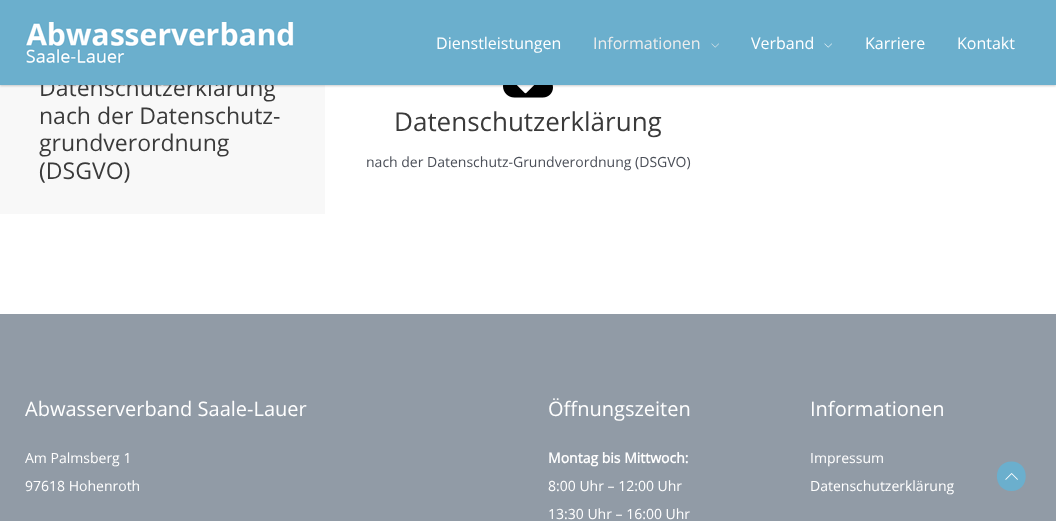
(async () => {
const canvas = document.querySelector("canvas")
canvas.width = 1056
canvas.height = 521
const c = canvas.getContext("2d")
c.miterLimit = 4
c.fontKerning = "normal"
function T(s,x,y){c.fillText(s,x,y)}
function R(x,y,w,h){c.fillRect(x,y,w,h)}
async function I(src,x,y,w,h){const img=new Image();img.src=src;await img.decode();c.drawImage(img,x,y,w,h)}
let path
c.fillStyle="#fff"
R(0,0,1056,521)
c.fillStyle="#f8f8f8"
R(0,85,325,129)
await I("4.png",503,85,50,13)
c.fillStyle="#00000033"
c.filter="blur(1px)"
c.beginPath()
c.rect(0,1,1056,85)
c.fill()
c.filter="none"
c.font="23px Open Sans"
c.fillStyle="#3a3a3a"
T("Datenschutzerklärung",39,96)
c.fillStyle="#6bafcd"
R(0,0,1056,85)
await I("1.png",25,22,269,41)
c.font="16px Open Sans"
c.fillStyle="#fff"
T("Dienstleistungen",436,49)
c.fillStyle="#ededed"
T("Informationen",593,49)
await I("2.png",711,43,8,5)
c.fillStyle="#fff"
T("Verband",751,49)
await I("3.png",824,43,8,5)
T("Karriere",865,49)
T("Kontakt",957,49)
c.font="23px Open Sans"
c.fillStyle="#3a3a3a"
T("nach der Datenschutz-",39,124)
T("grundverordnung",39,151)
T("(DSGVO)",39,179)
c.font="26px Open Sans"
T("Datenschutzerklärung",394,131)
c.font="14px Open Sans"
c.fillStyle="#4b4f58"
T("nach der Datenschutz-Grundverordnung (DSGVO)",366,167)
c.fillStyle="#919ba6"
R(0,314,1056,207)
c.font="20px Open Sans"
c.fillStyle="#fff"
T("Abwasserverband Saale-Lauer",25,416)
c.font="14px Open Sans"
T("Am Palmsberg 1",25,463)
T("97618 Hohenroth",25,491)
c.font="20px Open Sans"
T("Öffnungszeiten",548,416)
c.font="bold 14px Open Sans"
T("Montag bis Mittwoch:",548,463)
c.font="14px Open Sans"
T("8:00 Uhr – 12:00 Uhr",548,491)
T("13:30 Uhr – 16:00 Uhr",548,519)
c.font="20px Open Sans"
T("Informationen",810,416)
c.font="14px Open Sans"
T("Impressum",810,463)
T("Datenschutzerklärung",810,491)
c.fillStyle="#6bafcd"
path = new Path2D("M1011.5 491c-19.5 0-19.5-29.5 0-29.5c19 0 19 29.5 0 29.5z")
c.fill(path)
await I("5.png",1005,473,13,7)
})()
